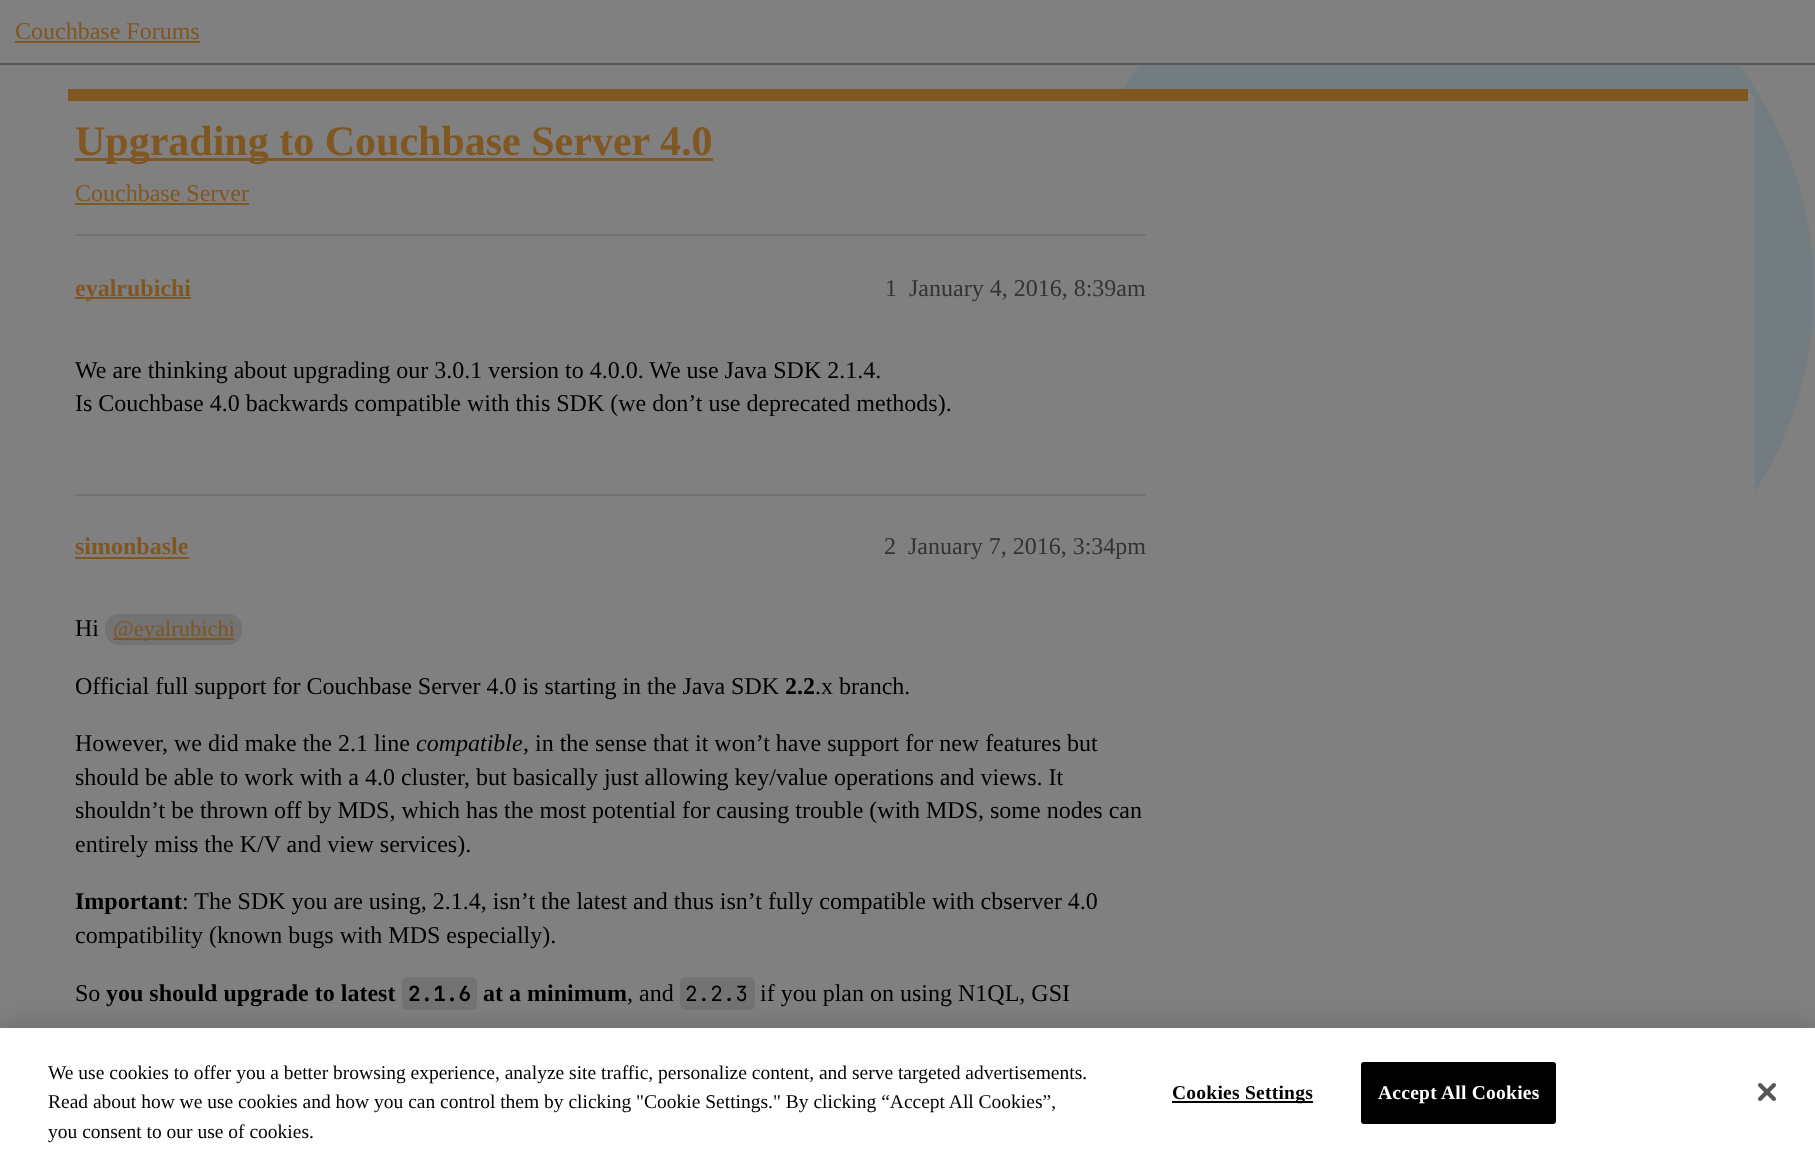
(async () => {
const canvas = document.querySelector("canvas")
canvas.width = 1815
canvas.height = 1161
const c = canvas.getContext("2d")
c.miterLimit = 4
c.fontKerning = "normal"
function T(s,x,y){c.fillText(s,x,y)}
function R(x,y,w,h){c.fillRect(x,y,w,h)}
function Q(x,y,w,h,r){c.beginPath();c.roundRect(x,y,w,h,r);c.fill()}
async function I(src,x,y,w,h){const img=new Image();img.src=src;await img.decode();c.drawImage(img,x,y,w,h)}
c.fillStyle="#808080"
R(0,0,1815,1161)
c.fillStyle="#737c80"
c.beginPath()
c.arc(1439,290,375,0,7)
c.fill()
c.fillStyle="#808080"
R(1141,0,596,63)
c.fillStyle="#585858"
R(0,63,1815,2)
c.font="24px Liberation Serif"
c.fillStyle="#805621"
T("Couchbase Forums",15,39)
R(15,41,185,2)
c.fillStyle="#808080"
Q(60,89,1695,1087,15)
c.fillStyle="#805621"
R(68,89,1680,12)
R(75,158,638,3)
c.font="bold 42px Liberation Serif"
T("Upgrading to Couchbase Server 4.0",75,155)
c.font="24px Liberation Serif"
T("Couchbase Server",75,201)
R(75,203,174,2)
c.fillStyle="#737373"
R(75,234,1071,2)
c.fillStyle="#805621"
R(75,297,116,2)
c.font="bold 24px Liberation Serif"
T("eyalrubichi",75,296)
c.font="24px Liberation Serif"
c.fillStyle="#333"
T("1",885,296)
T("January 4, 2016, 8:39am",909,296)
c.fillStyle="#000"
T("We are thinking about upgrading our 3.0.1 version to 4.0.0. We use Java SDK 2.1.4.",75,378)
T("Is Couchbase 4.0 backwards compatible with this SDK (we don’t use deprecated methods).",75,411)
c.fillStyle="#737373"
R(75,494,1071,2)
c.font="bold 24px Liberation Serif"
c.fillStyle="#805621"
T("simonbasle",75,554)
R(75,557,114,2)
c.font="24px Liberation Serif"
c.fillStyle="#333"
T("2",884,554)
T("January 7, 2016, 3:34pm",908,554)
c.fillStyle="#000"
T("Hi",75,636)
c.fillStyle="#737373"
Q(105,614,137,31,14)
c.fillStyle="#805621"
R(113,638,121,2)
c.font="22.5px Liberation Serif"
T("@eyalrubichi",113,636)
c.font="24px Liberation Serif"
c.fillStyle="#000"
T("Official full support for Couchbase Server 4.0 is starting in the Java SDK",75,694)
c.font="bold 24px Liberation Serif"
T("2.2",785,694)
c.font="24px Liberation Serif"
T(".x branch.",815,694)
T("However, we did make the 2.1 line",75,751)
c.font="italic 24px Liberation Serif"
T("compatible",416,751)
c.font="24px Liberation Serif"
T(", in the sense that it won’t have support for new features but",523,751)
T("should be able to work with a 4.0 cluster, but basically just allowing key/value operations and views. It",75,785)
T("shouldn’t be thrown off by MDS, which has the most potential for causing trouble (with MDS, some nodes can",75,818)
T("entirely miss the K/V and view services).",75,852)
c.font="bold 24px Liberation Serif"
T("Important",75,909)
c.font="24px Liberation Serif"
T(": The SDK you are using, 2.1.4, isn’t the latest and thus isn’t fully compatible with cbserver 4.0",182,909)
T("compatibility (known bugs with MDS especially).",75,943)
T("So",75,1001)
c.font="bold 24px Liberation Serif"
T("you should upgrade to latest",106,1001)
c.fillStyle="#737373"
Q(402,977,75,33,6)
c.font="bold 21px JetBrains Mono"
c.fillStyle="#000"
T("2.1.6",408,1001)
c.font="bold 24px Liberation Serif"
T("at a minimum",483,1001)
c.font="24px Liberation Serif"
T(", and",627,1001)
c.fillStyle="#737373"
Q(680,977,75,33,6)
c.font="21px JetBrains Mono"
c.fillStyle="#000"
T("2.2.3",685,1001)
c.font="24px Liberation Serif"
T("if you plan on using N1QL, GSI",760,1001)
c.fillStyle="#00000033"
c.filter="blur(13.5px)"
c.beginPath()
c.rect(0,1028,1815,133)
c.fill()
c.filter="none"
c.fillStyle="#fff"
R(0,1028,1815,133)
c.font="19.5px Liberation Serif"
c.fillStyle="#000"
T("We use cookies to offer you a better browsing experience, analyze site traffic, personalize content, and serve targeted advertisements.",48,1079)
T("Read about how we use cookies and how you can control them by clicking \"Cookie Settings.\" By clicking “Accept All Cookies”,",48,1108)
T("you consent to our use of cookies.",48,1138)
R(1172,1101,141,2)
c.letterSpacing="0.25px"
c.font="bold 19.5px Liberation Serif"
T("Cookies Settings",1172,1099)
c.beginPath()
c.roundRect(1362,1063,193,60,2)
c.fill()
c.strokeStyle="#000"
c.lineWidth=2
c.stroke()
c.fillStyle="#fff"
T("Accept All Cookies",1378,1099)
await I("1.png",1758,1083,18,18)
})()
